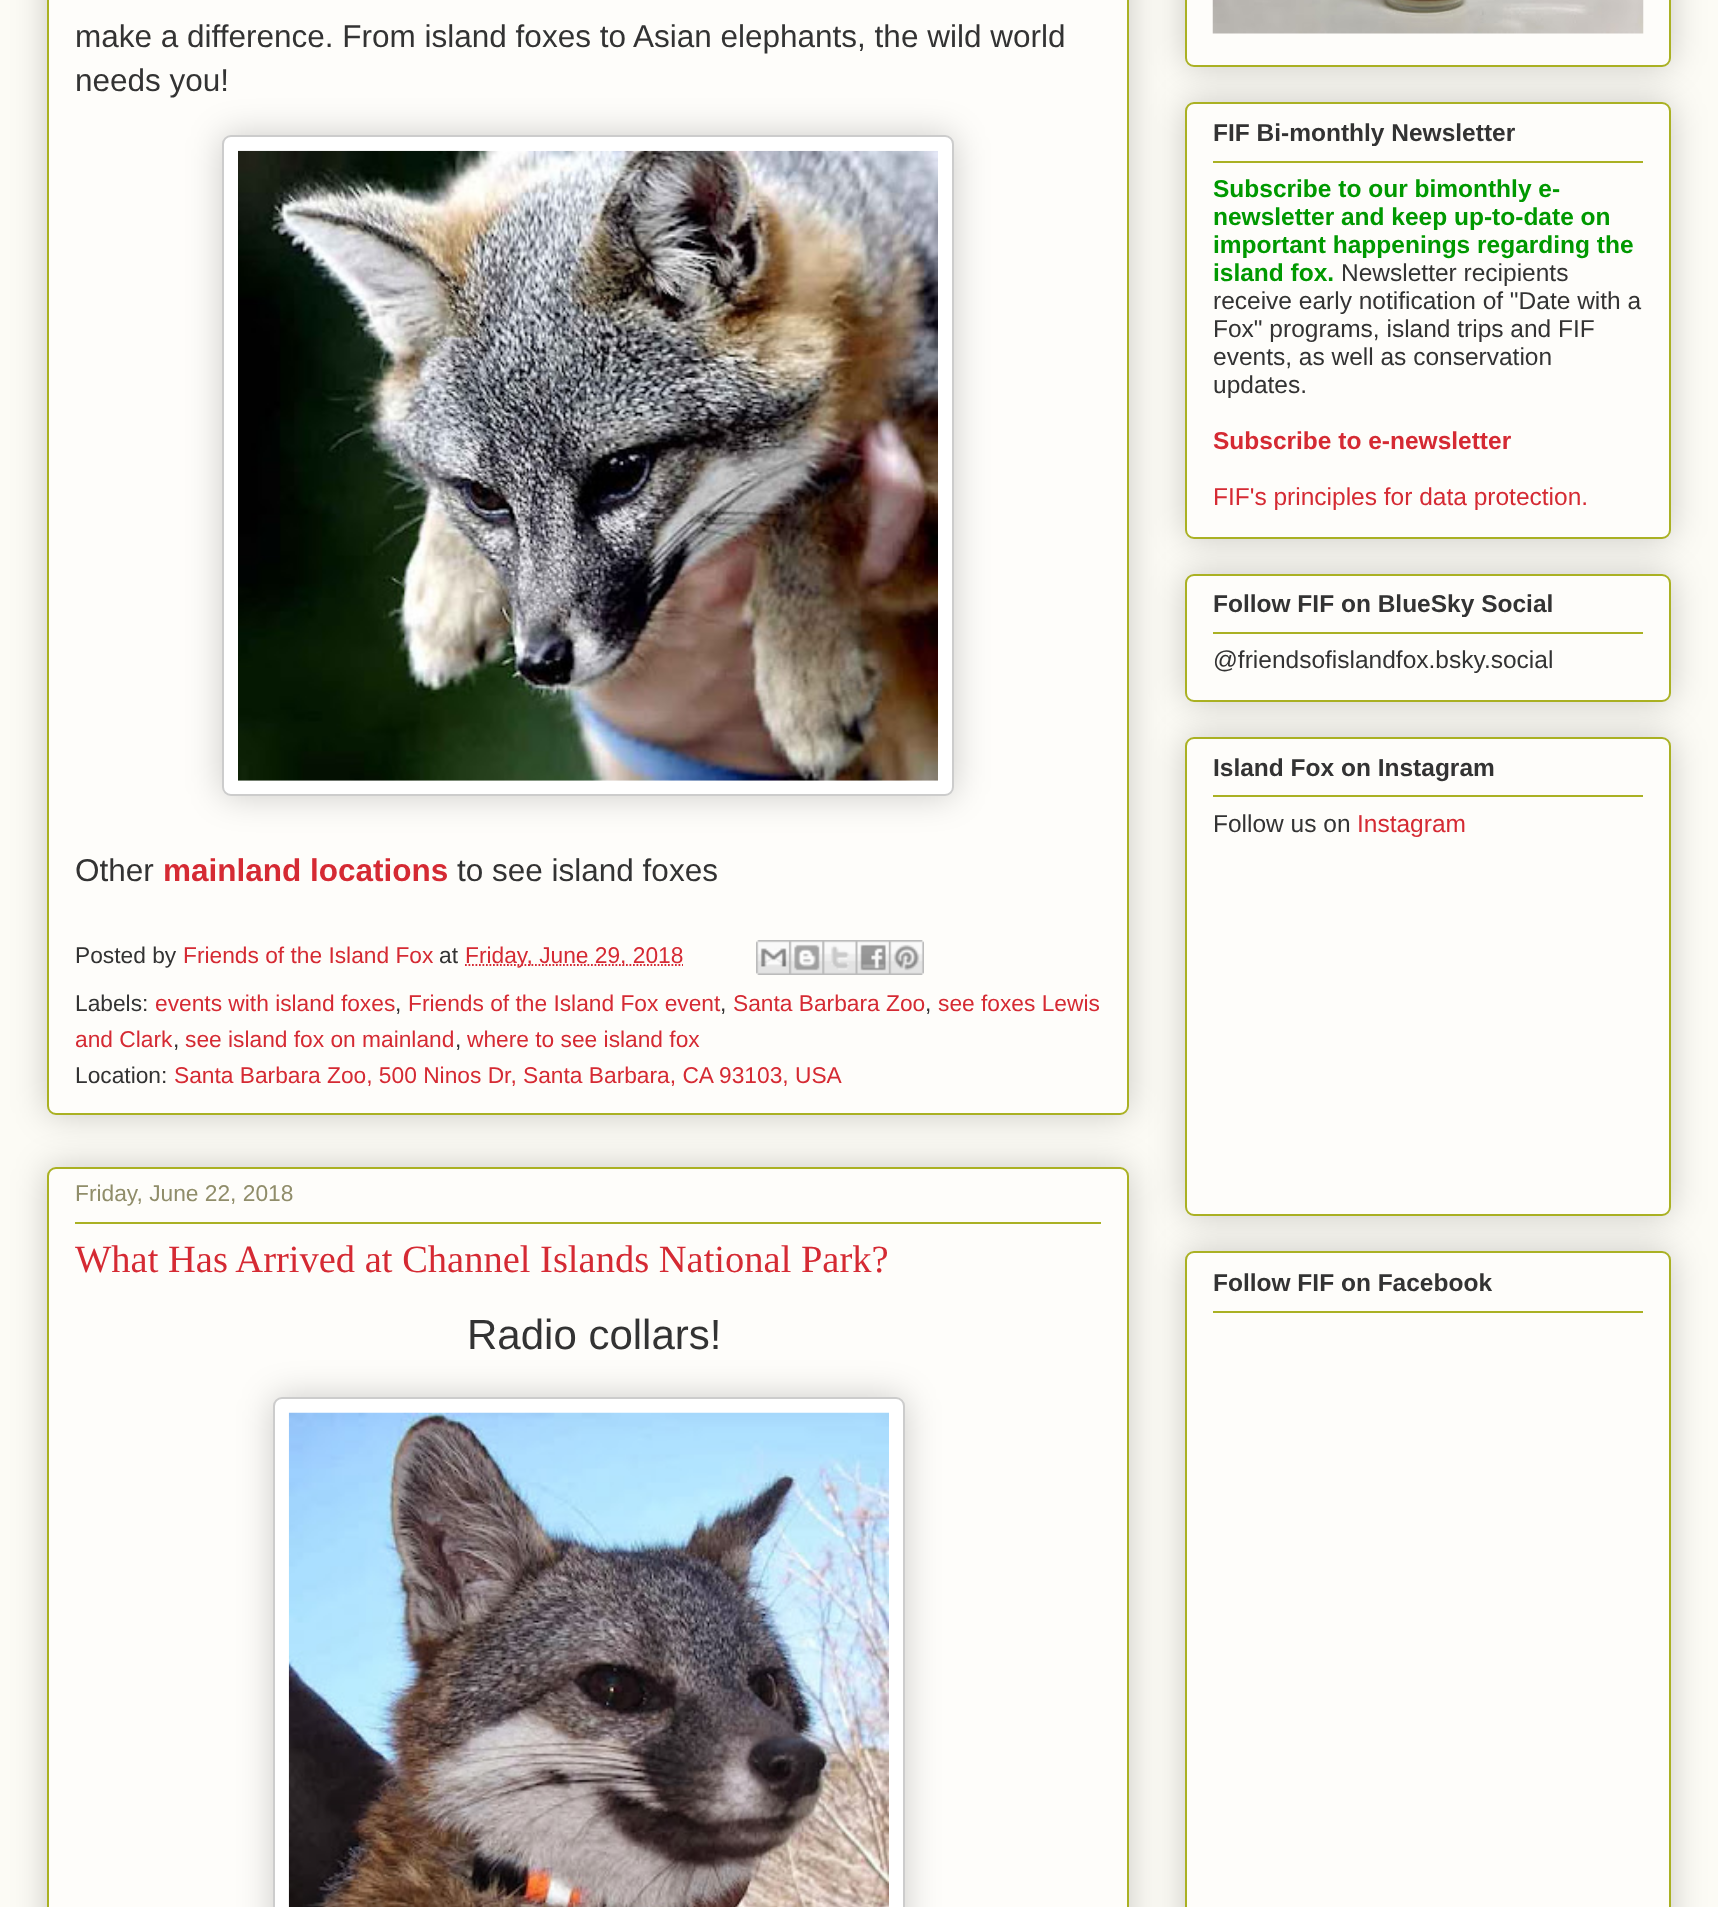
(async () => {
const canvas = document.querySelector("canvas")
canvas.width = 1718
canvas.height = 1907
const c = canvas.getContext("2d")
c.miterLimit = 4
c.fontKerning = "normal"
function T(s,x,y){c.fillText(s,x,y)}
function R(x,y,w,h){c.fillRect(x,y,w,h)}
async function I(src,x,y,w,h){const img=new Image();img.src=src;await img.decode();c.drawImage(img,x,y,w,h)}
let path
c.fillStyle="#fcfbf5"
R(0,0,1718,1907)
c.fillStyle="#00000033"
c.filter="blur(17.5px)"
c.beginPath()
c.roundRect(47,-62,1082,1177,9)
c.fill()
c.filter="none"
c.fillStyle="#fefdfa"
c.beginPath()
c.roundRect(48,-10,1080,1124,8)
c.fill()
c.strokeStyle="#aab123"
c.lineWidth=2
c.stroke()
c.font="31.5px Liberation Sans"
c.fillStyle="#333"
T("make a difference. From island foxes to Asian elephants, the wild world",75,47)
T("needs you!",75,91)
c.fillStyle="#00000033"
c.filter="blur(17.5px)"
c.beginPath()
c.roundRect(222,135,732,661,9)
c.fill()
c.filter="none"
c.fillStyle="#fff"
c.beginPath()
c.roundRect(223,136,730,659,8)
c.fill()
c.strokeStyle="#ccc"
c.stroke()
await I("1.png",238,150,700,631)
c.fillStyle="#333"
T("Other",75,881)
c.font="bold 31.5px Liberation Sans"
c.fillStyle="#d52a33"
T("mainland locations",163,881)
c.font="31.5px Liberation Sans"
c.fillStyle="#333"
T("to see island foxes",457,881)
c.font="22.75px Liberation Sans"
T("Posted by",75,963)
c.fillStyle="#d52a33"
T("Friends of the Island Fox",183,963)
c.fillStyle="#333"
T("at",439,963)
path = new Path2D("M465 965h218")
c.strokeStyle="#d52a33"
c.lineWidth=1.8
c.setLineDash([1.75,1.75])
c.stroke(path)
c.fillStyle="#d52a33"
T("Friday, June 29, 2018",465,963)
await I("2.png",756,940,34,35)
await I("3.png",789,940,34,35)
await I("4.png",822,940,34,35)
await I("5.png",855,940,34,35)
await I("6.png",889,940,35,35)
c.fillStyle="#333"
T("Labels:",75,1011)
c.fillStyle="#d52a33"
T("events with island foxes",155,1011)
c.fillStyle="#333"
T(",",395,1011)
c.fillStyle="#d52a33"
T("Friends of the Island Fox event",408,1011)
c.fillStyle="#333"
T(",",720,1011)
c.fillStyle="#d52a33"
T("Santa Barbara Zoo",733,1011)
c.fillStyle="#333"
T(",",925,1011)
c.fillStyle="#d52a33"
T("see foxes Lewis",938,1011)
T("and Clark",75,1047)
c.fillStyle="#333"
T(",",173,1047)
c.fillStyle="#d52a33"
T("see island fox on mainland",185,1047)
c.fillStyle="#333"
T(",",455,1047)
c.fillStyle="#d52a33"
T("where to see island fox",467,1047)
c.fillStyle="#333"
T("Location:",75,1083)
c.fillStyle="#d52a33"
T("Santa Barbara Zoo, 500 Ninos Dr, Santa Barbara, CA 93103, USA",174,1083)
c.fillStyle="#00000033"
c.filter="blur(17.5px)"
c.beginPath()
c.roundRect(47,1167,1082,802,9)
c.fill()
c.filter="none"
c.fillStyle="#fefdfa"
c.beginPath()
c.roundRect(48,1168,1080,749,8)
c.fill()
c.strokeStyle="#aab123"
c.lineWidth=2
c.setLineDash([])
c.stroke()
c.fillStyle="#908d6a"
T("Friday, June 22, 2018",75,1201)
c.fillStyle="#aab123"
R(75,1222,1026,2)
c.font="38.5px Liberation Serif"
c.fillStyle="#d52a33"
T("What Has Arrived at Channel Islands National Park?",75,1272)
c.font="42px Liberation Sans"
c.fillStyle="#333"
T("Radio collars!",467,1349)
c.fillStyle="#00000033"
c.filter="blur(17.5px)"
c.beginPath()
c.roundRect(273,1397,632,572,9)
c.fill()
c.filter="none"
c.fillStyle="#fff"
c.beginPath()
c.roundRect(274,1398,630,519,8)
c.fill()
c.strokeStyle="#ccc"
c.stroke()
await I("7.png",288,1412,601,495)
c.fillStyle="#00000033"
c.filter="blur(17.5px)"
c.beginPath()
c.roundRect(1185,-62,486,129,9)
c.fill()
c.filter="none"
c.fillStyle="#fefdfa"
c.beginPath()
c.roundRect(1186,-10,484,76,8)
c.fill()
c.strokeStyle="#aab123"
c.stroke()
await I("8.png",1212,0,432,34)
c.fillStyle="#00000033"
c.filter="blur(17.5px)"
c.beginPath()
c.roundRect(1185,102,486,437,9)
c.fill()
c.filter="none"
c.fillStyle="#fefdfa"
c.beginPath()
c.roundRect(1186,103,484,435,8)
c.fill()
c.stroke()
c.font="bold 24.5px Liberation Sans"
c.fillStyle="#333"
T("FIF Bi-monthly Newsletter",1213,141)
c.fillStyle="#aab123"
R(1213,161,430,2)
c.fillStyle="#090"
T("Subscribe to our bimonthly e-",1213,197)
T("newsletter and keep up-to-date on",1213,225)
T("important happenings regarding the",1213,253)
T("island fox.",1213,281)
c.font="24.5px Liberation Sans"
c.fillStyle="#333"
T("Newsletter recipients",1341,281)
T("receive early notification of \"Date with a",1213,309)
T("Fox\" programs, island trips and FIF",1213,337)
T("events, as well as conservation",1213,365)
T("updates.",1213,393)
c.font="bold 24.5px Liberation Sans"
c.fillStyle="#d52a33"
T("Subscribe to e-newsletter",1213,449)
c.font="24.5px Liberation Sans"
T("FIF's principles for data protection.",1213,505)
c.fillStyle="#00000033"
c.filter="blur(17.5px)"
c.beginPath()
c.roundRect(1185,574,486,128,9)
c.fill()
c.filter="none"
c.fillStyle="#fefdfa"
c.beginPath()
c.roundRect(1186,575,484,126,8)
c.fill()
c.stroke()
c.font="bold 24.5px Liberation Sans"
c.fillStyle="#333"
T("Follow FIF on BlueSky Social",1213,612)
c.fillStyle="#aab123"
R(1213,632,430,2)
c.font="24.5px Liberation Sans"
c.fillStyle="#333"
T("@friendsofislandfox.bsky.social",1213,668)
c.fillStyle="#00000033"
c.filter="blur(17.5px)"
c.beginPath()
c.roundRect(1185,737,486,479,9)
c.fill()
c.filter="none"
c.fillStyle="#fefdfa"
c.beginPath()
c.roundRect(1186,738,484,477,8)
c.fill()
c.stroke()
c.font="bold 24.5px Liberation Sans"
c.fillStyle="#333"
T("Island Fox on Instagram",1213,776)
c.fillStyle="#aab123"
R(1213,795,430,2)
c.font="24.5px Liberation Sans"
c.fillStyle="#333"
T("Follow us on",1213,832)
c.fillStyle="#d52a33"
T("Instagram",1357,832)
c.fillStyle="#00000033"
c.filter="blur(17.5px)"
c.beginPath()
c.roundRect(1185,1251,486,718,9)
c.fill()
c.filter="none"
c.fillStyle="#fefdfa"
c.beginPath()
c.roundRect(1186,1252,484,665,8)
c.fill()
c.stroke()
c.font="bold 24.5px Liberation Sans"
c.fillStyle="#333"
T("Follow FIF on Facebook",1213,1291)
c.fillStyle="#aab123"
R(1213,1311,430,2)
})()
